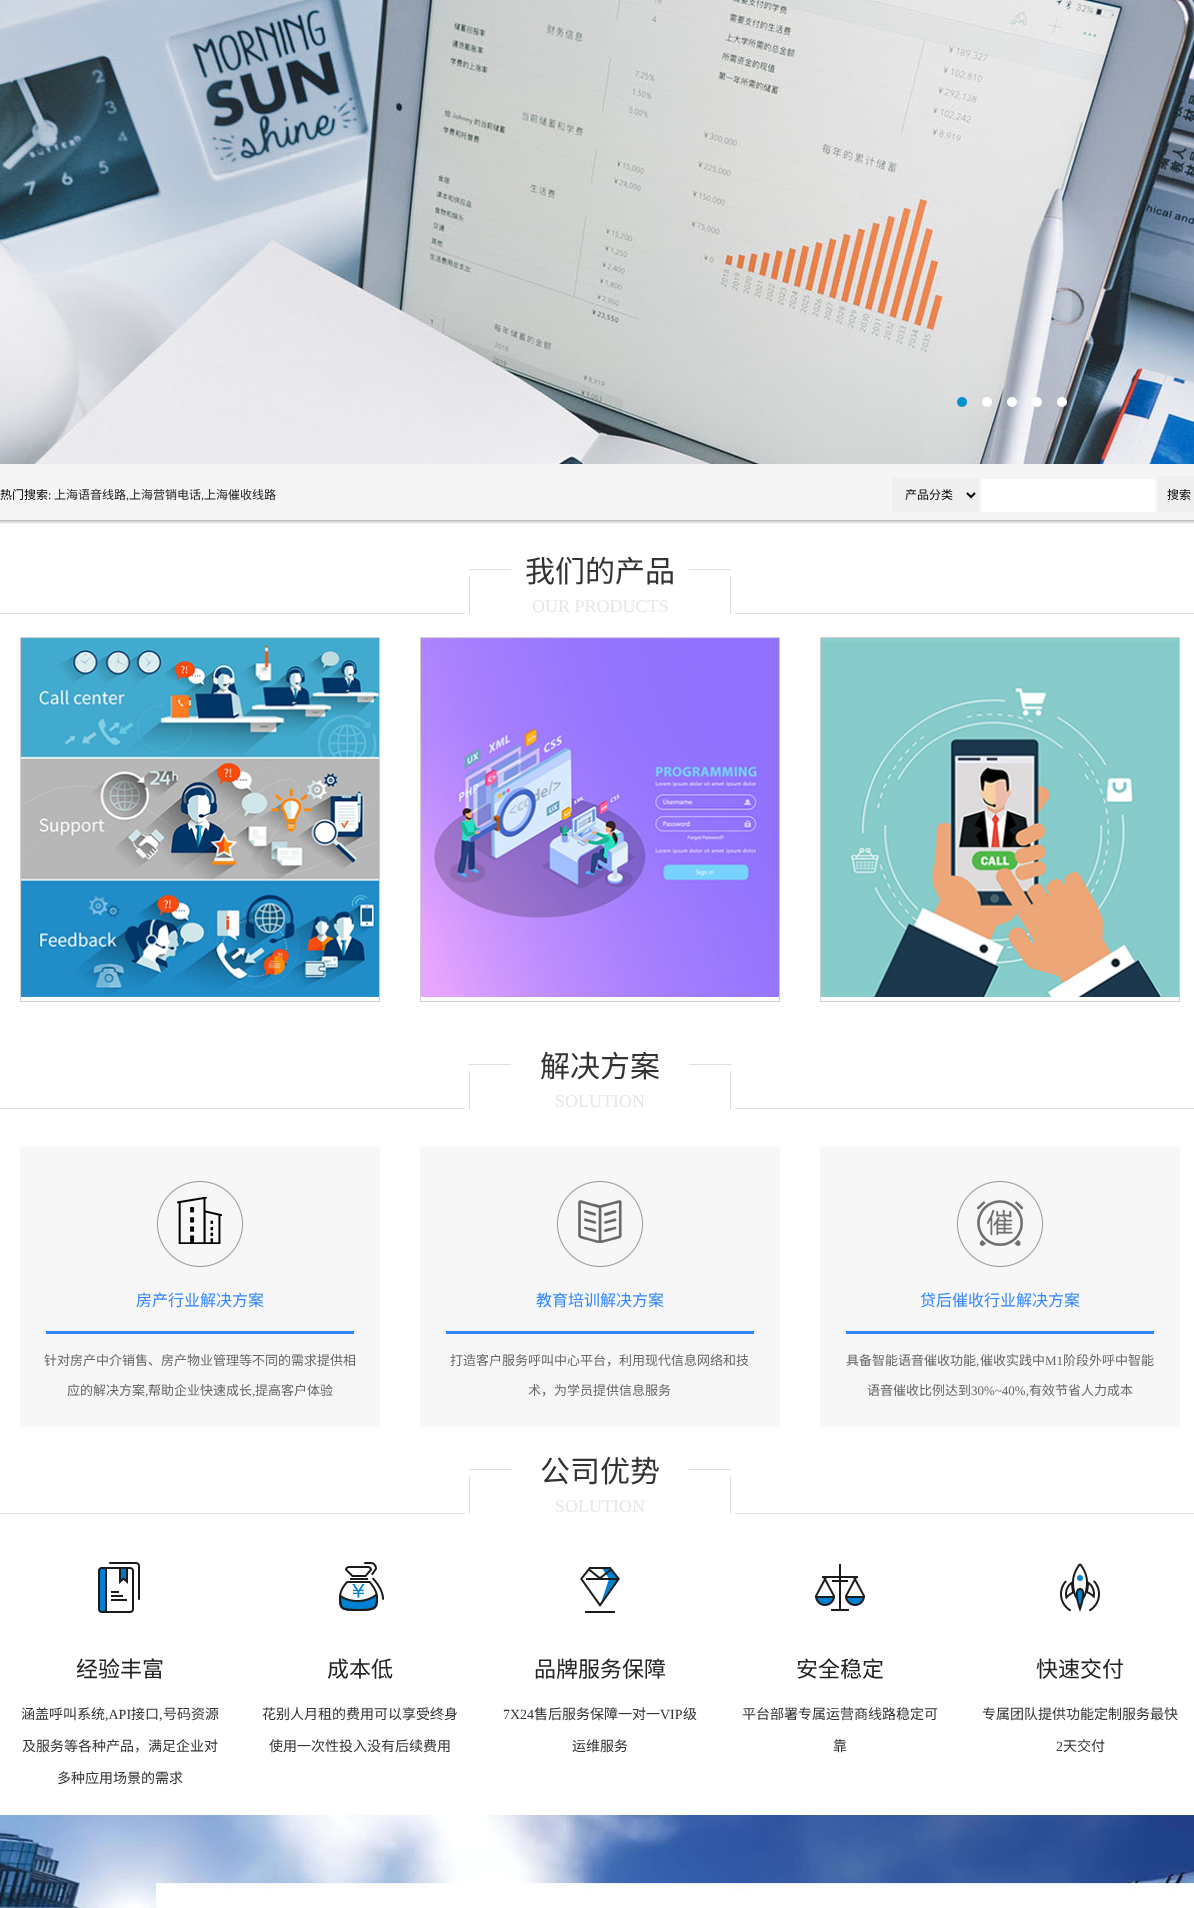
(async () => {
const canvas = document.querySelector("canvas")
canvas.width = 1194
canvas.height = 1908
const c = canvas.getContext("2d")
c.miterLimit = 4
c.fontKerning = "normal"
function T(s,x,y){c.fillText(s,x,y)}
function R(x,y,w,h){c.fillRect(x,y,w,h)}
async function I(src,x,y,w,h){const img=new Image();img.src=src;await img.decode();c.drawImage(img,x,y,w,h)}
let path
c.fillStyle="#fff"
R(0,0,1194,1908)
await I("1.png",0,0,1194,464)
c.fillStyle="#0092ce"
c.beginPath()
c.arc(962,402,5,0,7)
c.fill()
c.fillStyle="#fff"
c.beginPath()
c.arc(987,402,5,0,7)
c.fill()
c.beginPath()
c.arc(1012,402,5,0,7)
c.fill()
c.beginPath()
c.arc(1037,402,5,0,7)
c.fill()
c.beginPath()
c.arc(1062,402,5,0,7)
c.fill()
await I("2.png",0,464,1194,60)
c.font="12px Noto Sans CJK SC"
c.fillStyle="#000"
T("热门搜索",0,499)
c.font="12px Liberation Serif"
T(":",48,499)
c.font="12px Noto Sans CJK SC"
c.fillStyle="#222"
T("上海语音线路",54,499)
c.font="12px Liberation Serif"
T(",",126,499)
c.font="12px Noto Sans CJK SC"
T("上海营销电话",129,499)
c.font="12px Liberation Serif"
T(",",201,499)
c.font="12px Noto Sans CJK SC"
T("上海催收线路",204,499)
c.fillStyle="#efefef"
R(892,478,87,34)
path = new Path2D("M967 493l4 4l4-4")
c.strokeStyle="#000"
c.lineWidth=2
c.stroke(path)
c.fillStyle="#000"
T("产品分类",905,499)
c.fillStyle="#fff"
R(982,479,173,33)
c.fillStyle="#efefef"
R(1158,476,36,36)
c.fillStyle="#000"
T("搜索",1167,499)
await I("3.png",0,569,1194,45)
c.font="30px Noto Sans CJK SC"
c.fillStyle="#333"
T("我们的产品",525,582)
c.font="18px Liberation Serif"
c.fillStyle="#e6e6e6"
T("OUR PRODUCTS",532,612)
c.strokeStyle="#cecece"
c.lineWidth=1
c.strokeRect(20.5,637.5,359,364)
await I("4.png",21,638,358,359)
c.strokeRect(420.5,637.5,359,364)
await I("5.png",421,638,358,359)
c.strokeRect(820.5,637.5,359,364)
await I("6.png",821,638,358,359)
await I("3.png",0,1064,1194,45)
c.font="30px Noto Sans CJK SC"
c.fillStyle="#333"
T("解决方案",540,1077)
c.font="18px Liberation Serif"
c.fillStyle="#e6e6e6"
T("SOLUTION",555,1107)
c.fillStyle="#f7f7f7"
R(20,1147,360,280)
await I("7.png",157,1181,86,86)
c.font="16px Noto Sans CJK SC"
c.fillStyle="#3385ff"
T("房产行业解决方案",136,1306)
R(46,1331,308,3)
c.font="13px Noto Sans CJK SC"
c.fillStyle="#666"
T("针对房产中介销售、房产物业管理等不同的需求提供相",44,1365)
T("应的解决方案",67,1395)
c.font="13px Liberation Serif"
T(",",145,1395)
c.font="13px Noto Sans CJK SC"
T("帮助企业快速成长",148,1395)
c.font="13px Liberation Serif"
T(",",252,1395)
c.font="13px Noto Sans CJK SC"
T("提高客户体验",255,1395)
c.fillStyle="#f7f7f7"
R(420,1147,360,280)
await I("8.png",557,1181,86,86)
c.font="16px Noto Sans CJK SC"
c.fillStyle="#3385ff"
T("教育培训解决方案",536,1306)
R(446,1331,308,3)
c.font="13px Noto Sans CJK SC"
c.fillStyle="#666"
T("打造客户服务呼叫中心平台，利用现代信息网络和技",450,1365)
T("术，为学员提供信息服务",528,1395)
c.fillStyle="#f7f7f7"
R(820,1147,360,280)
await I("9.png",957,1181,86,86)
c.font="16px Noto Sans CJK SC"
c.fillStyle="#3385ff"
T("贷后催收行业解决方案",920,1306)
R(846,1331,308,3)
c.font="13px Noto Sans CJK SC"
c.fillStyle="#666"
T("具备智能语音催收功能",846,1365)
c.font="13px Liberation Serif"
T(",",976,1365)
c.font="13px Noto Sans CJK SC"
T("催收实践中",980,1365)
c.font="13px Liberation Serif"
T("M1",1045,1365)
c.font="13px Noto Sans CJK SC"
T("阶段外呼中智能",1063,1365)
T("语音催收比例达到",867,1395)
c.font="13px Liberation Serif"
T("30%~40%,",971,1395)
c.font="13px Noto Sans CJK SC"
T("有效节省人力成本",1029,1395)
await I("3.png",0,1469,1194,45)
c.font="30px Noto Sans CJK SC"
c.fillStyle="#333"
T("公司优势",540,1482)
c.font="18px Liberation Serif"
c.fillStyle="#e6e6e6"
T("SOLUTION",555,1512)
await I("10.png",98,1562,42,51)
c.font="22px Noto Sans CJK SC"
c.fillStyle="#222"
T("经验丰富",76,1677)
c.font="14px Noto Sans CJK SC"
c.fillStyle="#333"
T("涵盖呼叫系统",21,1719)
c.font="14px Liberation Serif"
T(",API",105,1719)
c.font="14px Noto Sans CJK SC"
T("接口",131,1719)
c.font="14px Liberation Serif"
T(",",159,1719)
c.font="14px Noto Sans CJK SC"
T("号码资源",163,1719)
T("及服务等各种产品，满足企业对",22,1751)
T("多种应用场景的需求",57,1783)
await I("11.png",339,1562,45,49)
c.font="22px Noto Sans CJK SC"
c.fillStyle="#222"
T("成本低",327,1677)
c.font="14px Noto Sans CJK SC"
c.fillStyle="#333"
T("花别人月租的费用可以享受终身",262,1719)
T("使用一次性投入没有后续费用",269,1751)
await I("12.png",580,1567,40,46)
c.font="22px Noto Sans CJK SC"
c.fillStyle="#222"
T("品牌服务保障",534,1677)
c.font="14px Liberation Serif"
c.fillStyle="#333"
T("7X24",503,1719)
c.font="14px Noto Sans CJK SC"
T("售后服务保障一对一",534,1719)
c.font="14px Liberation Serif"
T("VIP",660,1719)
c.font="14px Noto Sans CJK SC"
T("级",683,1719)
T("运维服务",572,1751)
await I("13.png",814,1564,52,47)
c.font="22px Noto Sans CJK SC"
c.fillStyle="#222"
T("安全稳定",796,1677)
c.font="14px Noto Sans CJK SC"
c.fillStyle="#333"
T("平台部署专属运营商线路稳定可",742,1719)
T("靠",833,1751)
await I("14.png",1060,1563,40,49)
c.font="22px Noto Sans CJK SC"
c.fillStyle="#222"
T("快速交付",1036,1677)
c.font="14px Noto Sans CJK SC"
c.fillStyle="#333"
T("专属团队提供功能定制服务最快",982,1719)
c.font="14px Liberation Serif"
T("2",1056,1751)
c.font="14px Noto Sans CJK SC"
T("天交付",1063,1751)
await I("15.png",0,1815,1194,93)
})()
